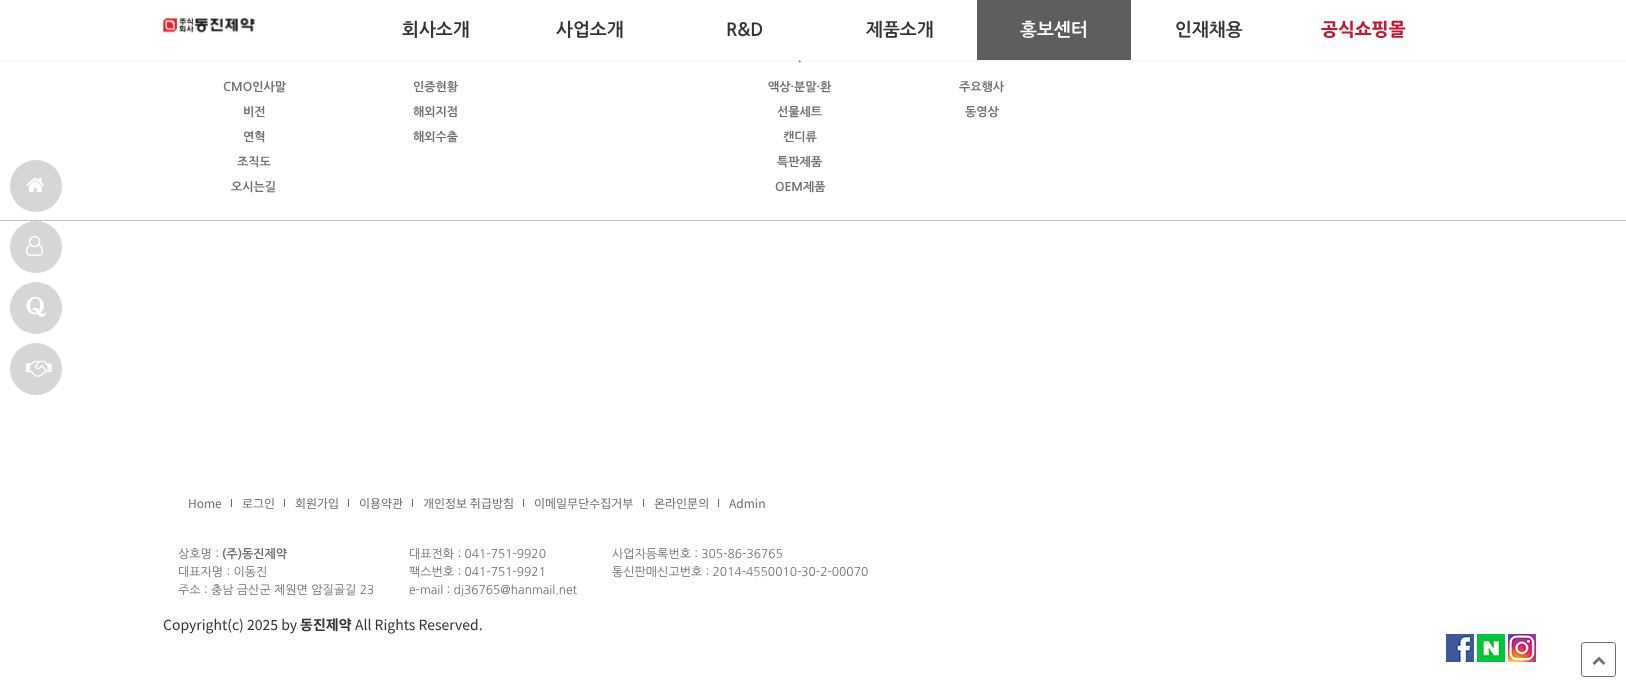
(async () => {
const canvas = document.querySelector("canvas")
canvas.width = 1626
canvas.height = 687
const c = canvas.getContext("2d")
c.miterLimit = 4
c.fontKerning = "normal"
function T(s,x,y){c.fillText(s,x,y)}
function R(x,y,w,h){c.fillRect(x,y,w,h)}
async function I(src,x,y,w,h){const img=new Image();img.src=src;await img.decode();c.drawImage(img,x,y,w,h)}
c.fillStyle="#fff"
R(0,0,1626,687)
c.fillStyle="#d6d6d6"
c.beginPath()
c.arc(36,186,26,0,7)
c.fill()
await I("1.png",26,177,18,15)
c.beginPath()
c.arc(36,247,26,0,7)
c.fill()
await I("2.png",26,235,18,21)
c.beginPath()
c.arc(36,308,26,0,7)
c.fill()
await I("3.png",26,296,20,21)
c.beginPath()
c.arc(36,369,26,0,7)
c.fill()
await I("4.png",26,360,26,17)
c.fillStyle="#e7e7e7"
c.filter="blur(1.5px)"
c.beginPath()
c.rect(2,0,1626,60)
c.fill()
c.filter="none"
c.fillStyle="#fff"
R(0,0,1626,60)
await I("5.png",163,17,92,16)
c.font="bold 18px NanumGothic"
c.fillStyle="#333"
T("회사소개",402,36)
T("사업소개",556,36)
T("R&D",726,36)
T("제품소개",866,36)
c.fillStyle="#5e5e5e"
R(977,0,154,60)
c.fillStyle="#fff"
T("홍보센터",1020,36)
c.fillStyle="#333"
T("인재채용",1175,36)
c.font="800 18px NanumGothic"
c.fillStyle="#c7162d"
T("공식쇼핑몰",1321,36)
c.fillStyle="#c0c0c0"
R(0,220,1626,1)
c.font="bold 12px NanumGothic"
c.fillStyle="#6e6e6e"
T("CMO인사말",223,91)
T("비전",243,116)
T("연혁",243,141)
T("조직도",237,166)
T("오시는길",231,191)
T("인증현황",413,91)
T("해외지점",413,116)
T("해외수출",413,141)
T("·",798,66)
T("액상·분말·환",768,91)
T("선물세트",777,116)
T("캔디류",783,141)
T("특판제품",777,166)
T("OEM제품",775,191)
T("주요행사",959,91)
T("동영상",965,116)
c.font="12px Noto Sans KR"
T("Home",188,508)
c.fillStyle="#6a6a6a"
R(231,499,1,8)
c.fillStyle="#6e6e6e"
T("로그인",242,508)
c.fillStyle="#6a6a6a"
R(284,499,1,8)
c.fillStyle="#6e6e6e"
T("회원가입",295,508)
c.fillStyle="#6a6a6a"
R(348,499,1,8)
c.fillStyle="#6e6e6e"
T("이용약관",359,508)
c.fillStyle="#6a6a6a"
R(412,499,1,8)
c.fillStyle="#6e6e6e"
T("개인정보 취급방침",423,508)
c.fillStyle="#6a6a6a"
R(523,499,1,8)
c.fillStyle="#6e6e6e"
T("이메일무단수집거부",534,508)
c.fillStyle="#6a6a6a"
R(643,499,1,8)
c.fillStyle="#6e6e6e"
T("온라인문의",654,508)
c.fillStyle="#6a6a6a"
R(718,499,1,8)
c.fillStyle="#6e6e6e"
T("Admin",729,508)
c.font="12px NanumGothic"
T("상호명 :",178,558)
c.font="bold 12px NanumGothic"
T("(주)동진제약",222,558)
c.font="12px NanumGothic"
T("대표자명 : 이동진",178,576)
T("주소 : 충남 금산군 제원면 암질골길 23",178,594)
T("대표전화 : 041-751-9920",409,558)
T("팩스번호 : 041-751-9921",409,576)
T("e-mail : dj36765@hanmail.net",409,594)
T("사업자등록번호 : 305-86-36765",612,558)
T("통신판매신고번호 : 2014-4550010-30-2-00070",612,576)
c.font="14px Noto Sans KR"
c.fillStyle="#333"
T("Copyright(c) 2025 by",163,630)
c.font="bold 14px Noto Sans KR"
T("동진제약",300,630)
c.font="14px Noto Sans KR"
T("All Rights Reserved.",355,630)
await I("6.png",1446,634,28,28)
await I("7.png",1477,634,28,28)
await I("8.png",1508,634,28,28)
c.beginPath()
c.roundRect(1581.5,642.5,34,34,2.5)
c.strokeStyle="#717171"
c.stroke()
await I("9.png",1592,656,14,9)
})()
